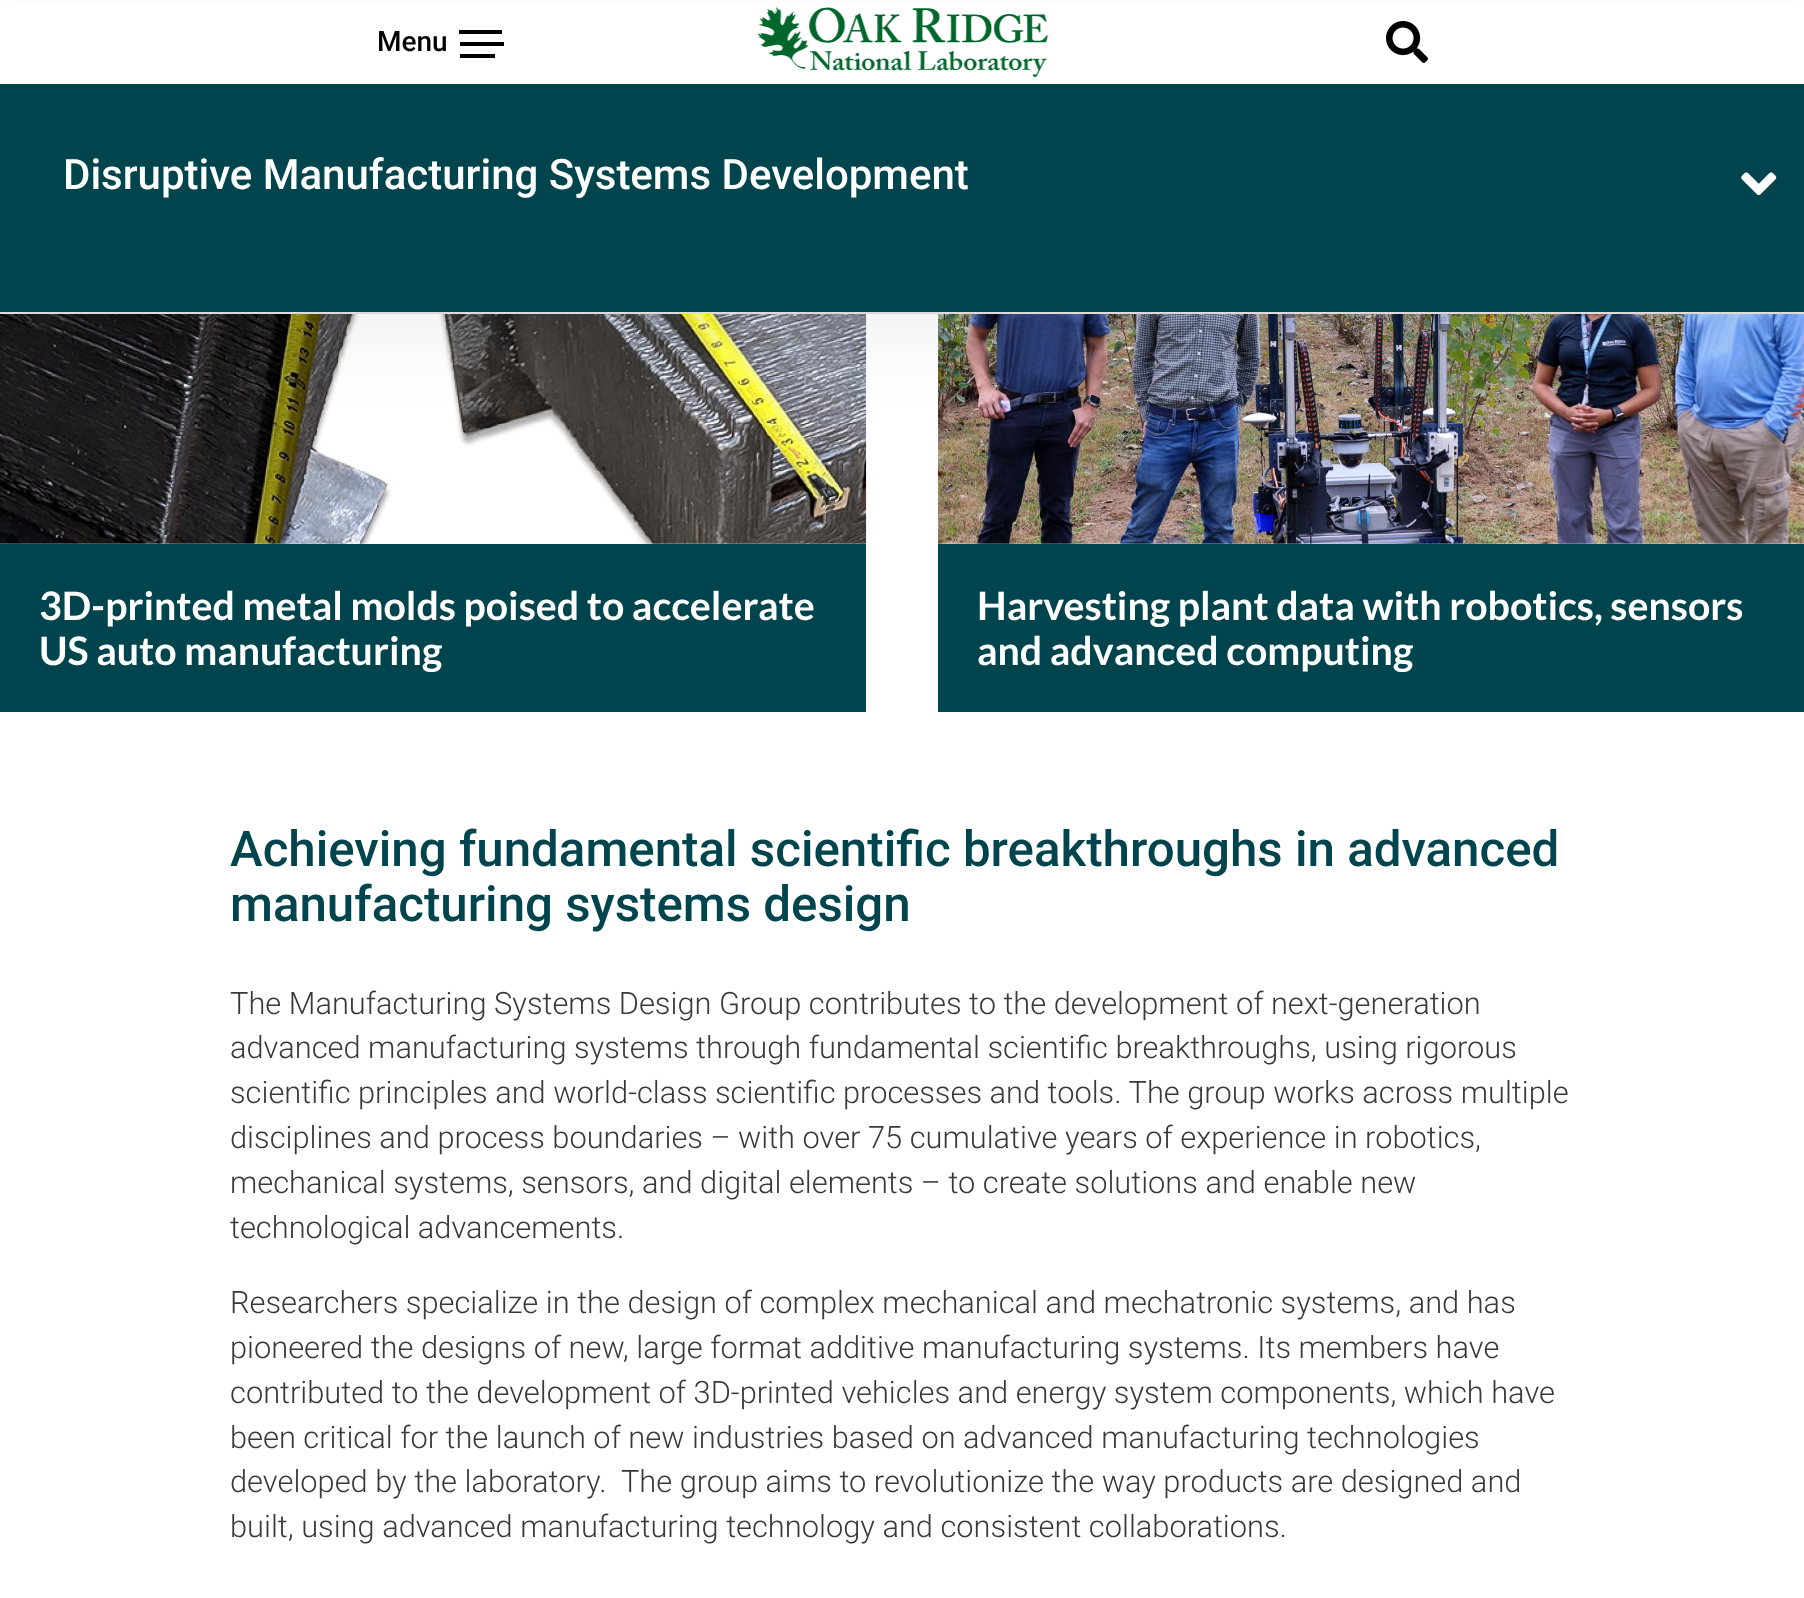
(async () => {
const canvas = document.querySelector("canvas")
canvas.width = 1804
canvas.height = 1598
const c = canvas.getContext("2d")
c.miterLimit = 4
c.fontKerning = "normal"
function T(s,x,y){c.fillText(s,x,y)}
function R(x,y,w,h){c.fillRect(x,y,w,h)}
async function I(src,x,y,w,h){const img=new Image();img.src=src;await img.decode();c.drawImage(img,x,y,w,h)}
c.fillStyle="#fff"
R(0,0,1804,1598)
await I("4.png",0,314,867,230)
await I("5.png",938,314,866,230)
c.fillStyle="#0000000d"
c.filter="blur(35px)"
c.beginPath()
c.rect(0,32,1804,311)
c.fill()
c.filter="none"
c.fillStyle="#fff"
R(0,3,1804,81)
c.font="500 28px Roboto"
c.fillStyle="#000"
T("Menu",377,51)
R(459,30,43,4)
R(460,42,44,4)
R(460,54,35,4)
await I("1.png",757,7,292,70)
await I("2.png",1386,21,42,42)
c.fillStyle="#00454d"
R(0,84,1804,228)
c.font="500 42px Roboto"
c.fillStyle="#fff"
T("Disruptive Manufacturing Systems Development",63,189)
await I("3.png",1741,172,36,23)
c.fillStyle="#dbdcdb"
R(0,312,1804,2)
c.fillStyle="#00454d"
R(0,544,866,168)
c.font="bold 39.25px Lato"
c.fillStyle="#fff"
T("3D-printed metal molds poised to accelerate",39,620)
T("US auto manufacturing",39,665)
c.fillStyle="#00454d"
R(938,544,866,168)
c.fillStyle="#fff"
T("Harvesting plant data with robotics, sensors",977,620)
T("and advanced computing",977,665)
c.font="500 49.25px Roboto"
c.fillStyle="#00454d"
T("Achieving fundamental scientific breakthroughs in advanced",230,866)
T("manufacturing systems design",230,921)
c.font="300 30.8px Roboto"
c.fillStyle="#373a36"
T("The Manufacturing Systems Design Group contributes to the development of next-generation",230,1014)
T("advanced manufacturing systems through fundamental scientific breakthroughs, using rigorous",230,1058)
T("scientific principles and world-class scientific processes and tools. The group works across multiple",230,1103)
T("disciplines and process boundaries – with over 75 cumulative years of experience in robotics,",230,1148)
T("mechanical systems, sensors, and digital elements – to create solutions and enable new",230,1193)
T("technological advancements.",230,1238)
T("Researchers specialize in the design of complex mechanical and mechatronic systems, and has",230,1313)
T("pioneered the designs of new, large format additive manufacturing systems. Its members have",230,1358)
T("contributed to the development of 3D-printed vehicles and energy system components, which have",230,1403)
T("been critical for the launch of new industries based on advanced manufacturing technologies",230,1448)
T("developed by the laboratory.  The group aims to revolutionize the way products are designed and",230,1492)
T("built, using advanced manufacturing technology and consistent collaborations.",230,1537)
})()
